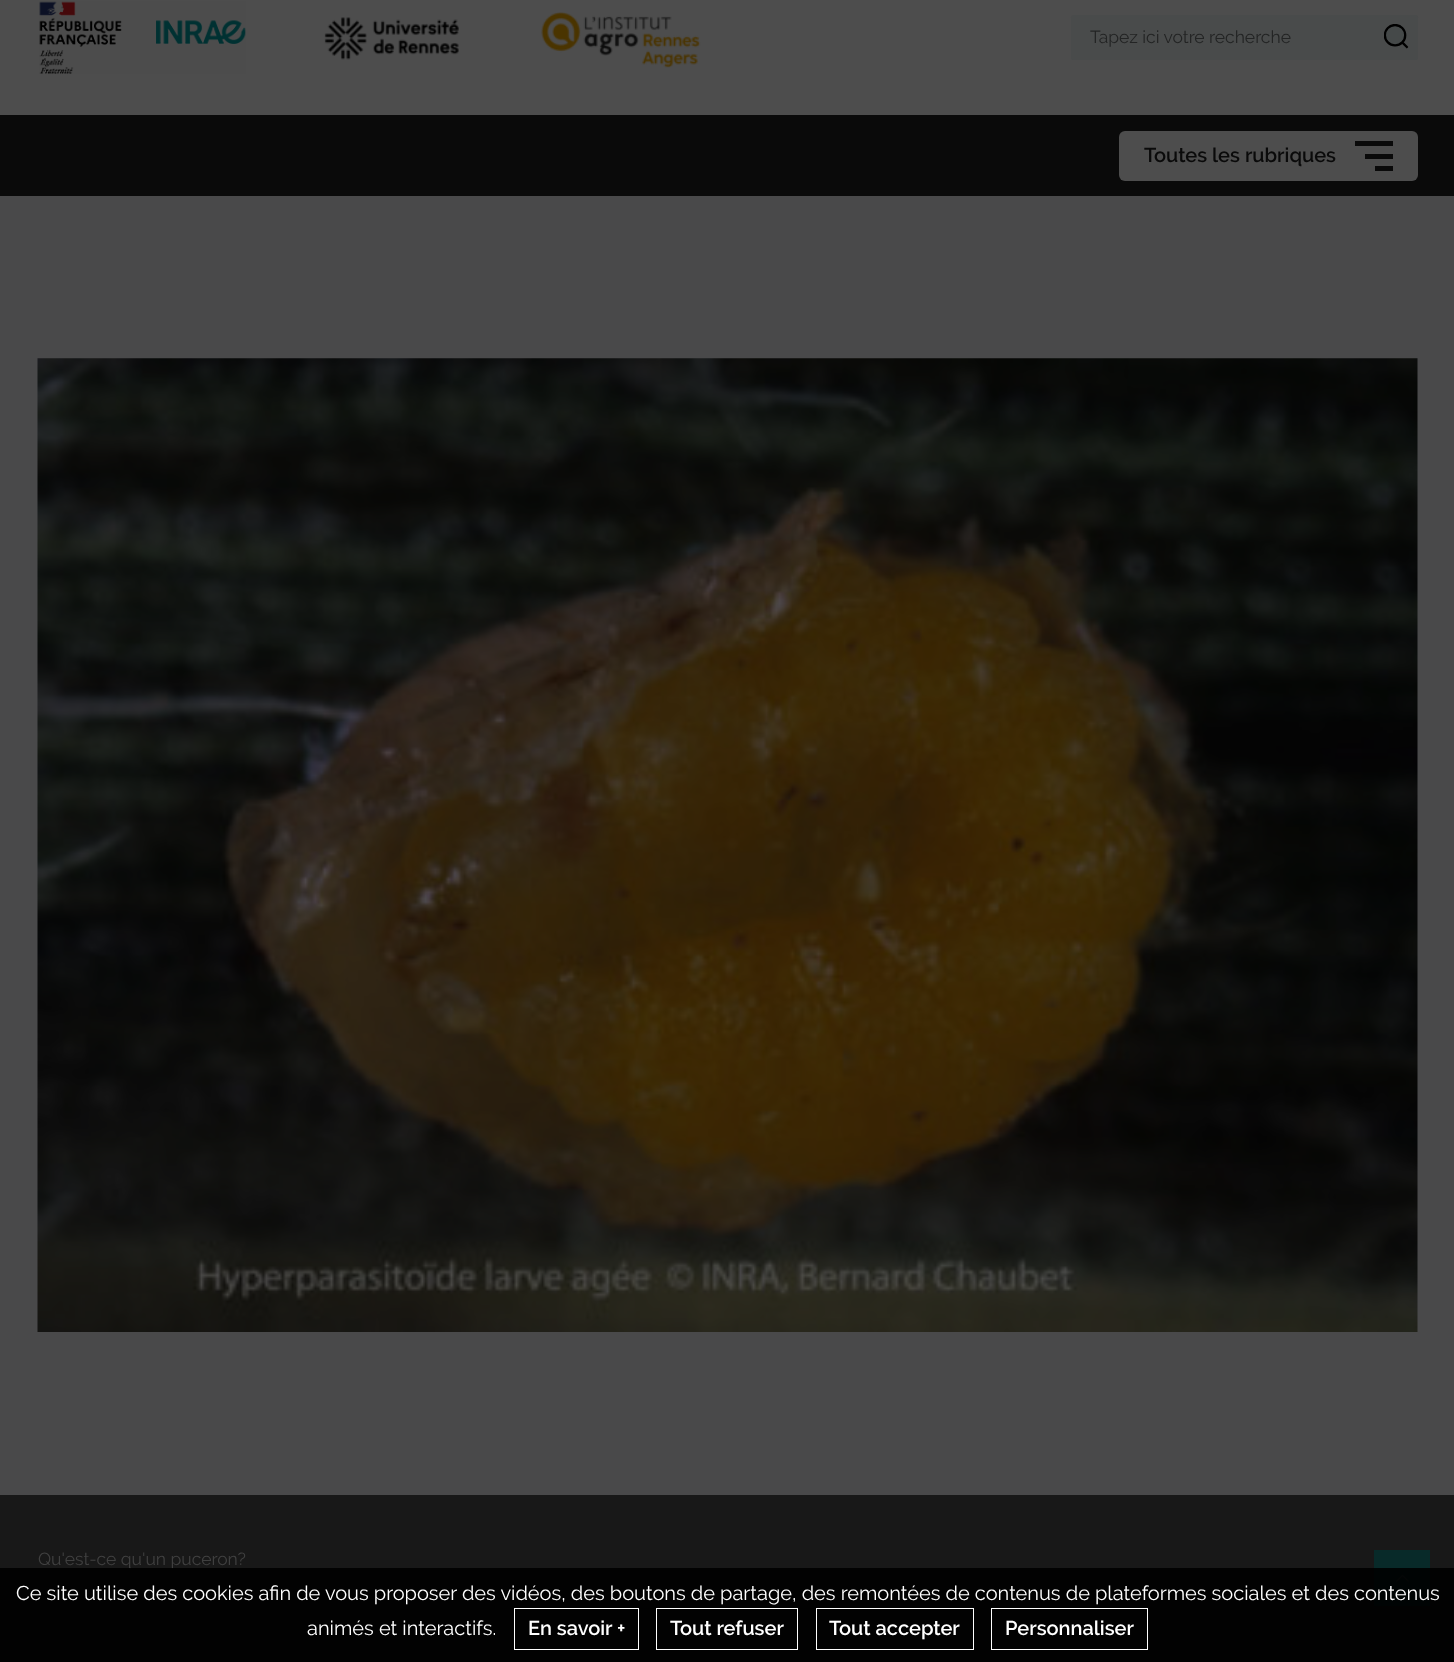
(async () => {
const canvas = document.querySelector("canvas")
canvas.width = 1454
canvas.height = 1662
const c = canvas.getContext("2d")
c.miterLimit = 4
c.fontKerning = "normal"
function T(s,x,y){c.fillText(s,x,y)}
function R(x,y,w,h){c.fillRect(x,y,w,h)}
function Q(x,y,w,h,r){c.beginPath();c.roundRect(x,y,w,h,r);c.fill()}
async function I(src,x,y,w,h){const img=new Image();img.src=src;await img.decode();c.drawImage(img,x,y,w,h)}
c.fillStyle="#4d4d4d"
R(0,0,1454,1662)
await I("1.png",39,1,207,73)
await I("2.png",324,17,135,43)
await I("3.png",541,12,160,56)
c.fillStyle="#494b4b"
Q(1071,15,347,45,2.5)
c.font="17.5px Raleway"
c.fillStyle="#232424"
T("Tapez ici votre recherche",1090,43)
await I("4.png",1384,24,25,25)
c.fillStyle="#0a0a0a"
R(0,115,1454,81)
c.fillStyle="#4d4d4d"
Q(1119,131,299,50,6)
c.font="600 20px Raleway"
c.fillStyle="#0a0a0a"
T("Toutes les rubriques",1144,162)
R(1355,141,38,5)
R(1365,154,28,5)
R(1375,166,18,5)
c.fillStyle="#49494a"
R(0,196,1454,1299)
await I("5.png",37,358,1381,974)
c.fillStyle="#181818"
R(0,1495,1454,167)
c.font="17.5px Raleway"
c.fillStyle="#404040"
T("Qu'est-ce qu'un puceron?",38,1565)
c.fillStyle="#082a29"
R(1374,1550,56,56)
await I("6.png",1396,1574,13,9)
c.fillStyle="#000000e6"
R(0,1568,1454,94)
c.font="20px Raleway"
c.fillStyle="#fff"
T("Ce site utilise des cookies afin de vous proposer des vidéos, des boutons de partage, des remontées de contenus de plateformes sociales et des contenus",16,1600)
T("animés et interactifs.",307,1635)
c.strokeStyle="#fff"
c.strokeRect(514.5,1608.5,124,41)
c.font="600 20px Raleway"
T("En savoir +",528,1635)
c.strokeRect(656.5,1608.5,141,41)
T("Tout refuser",670,1635)
c.strokeRect(816.5,1608.5,157,41)
T("Tout accepter",829,1635)
c.strokeRect(991.5,1608.5,156,41)
T("Personnaliser",1005,1635)
})()
